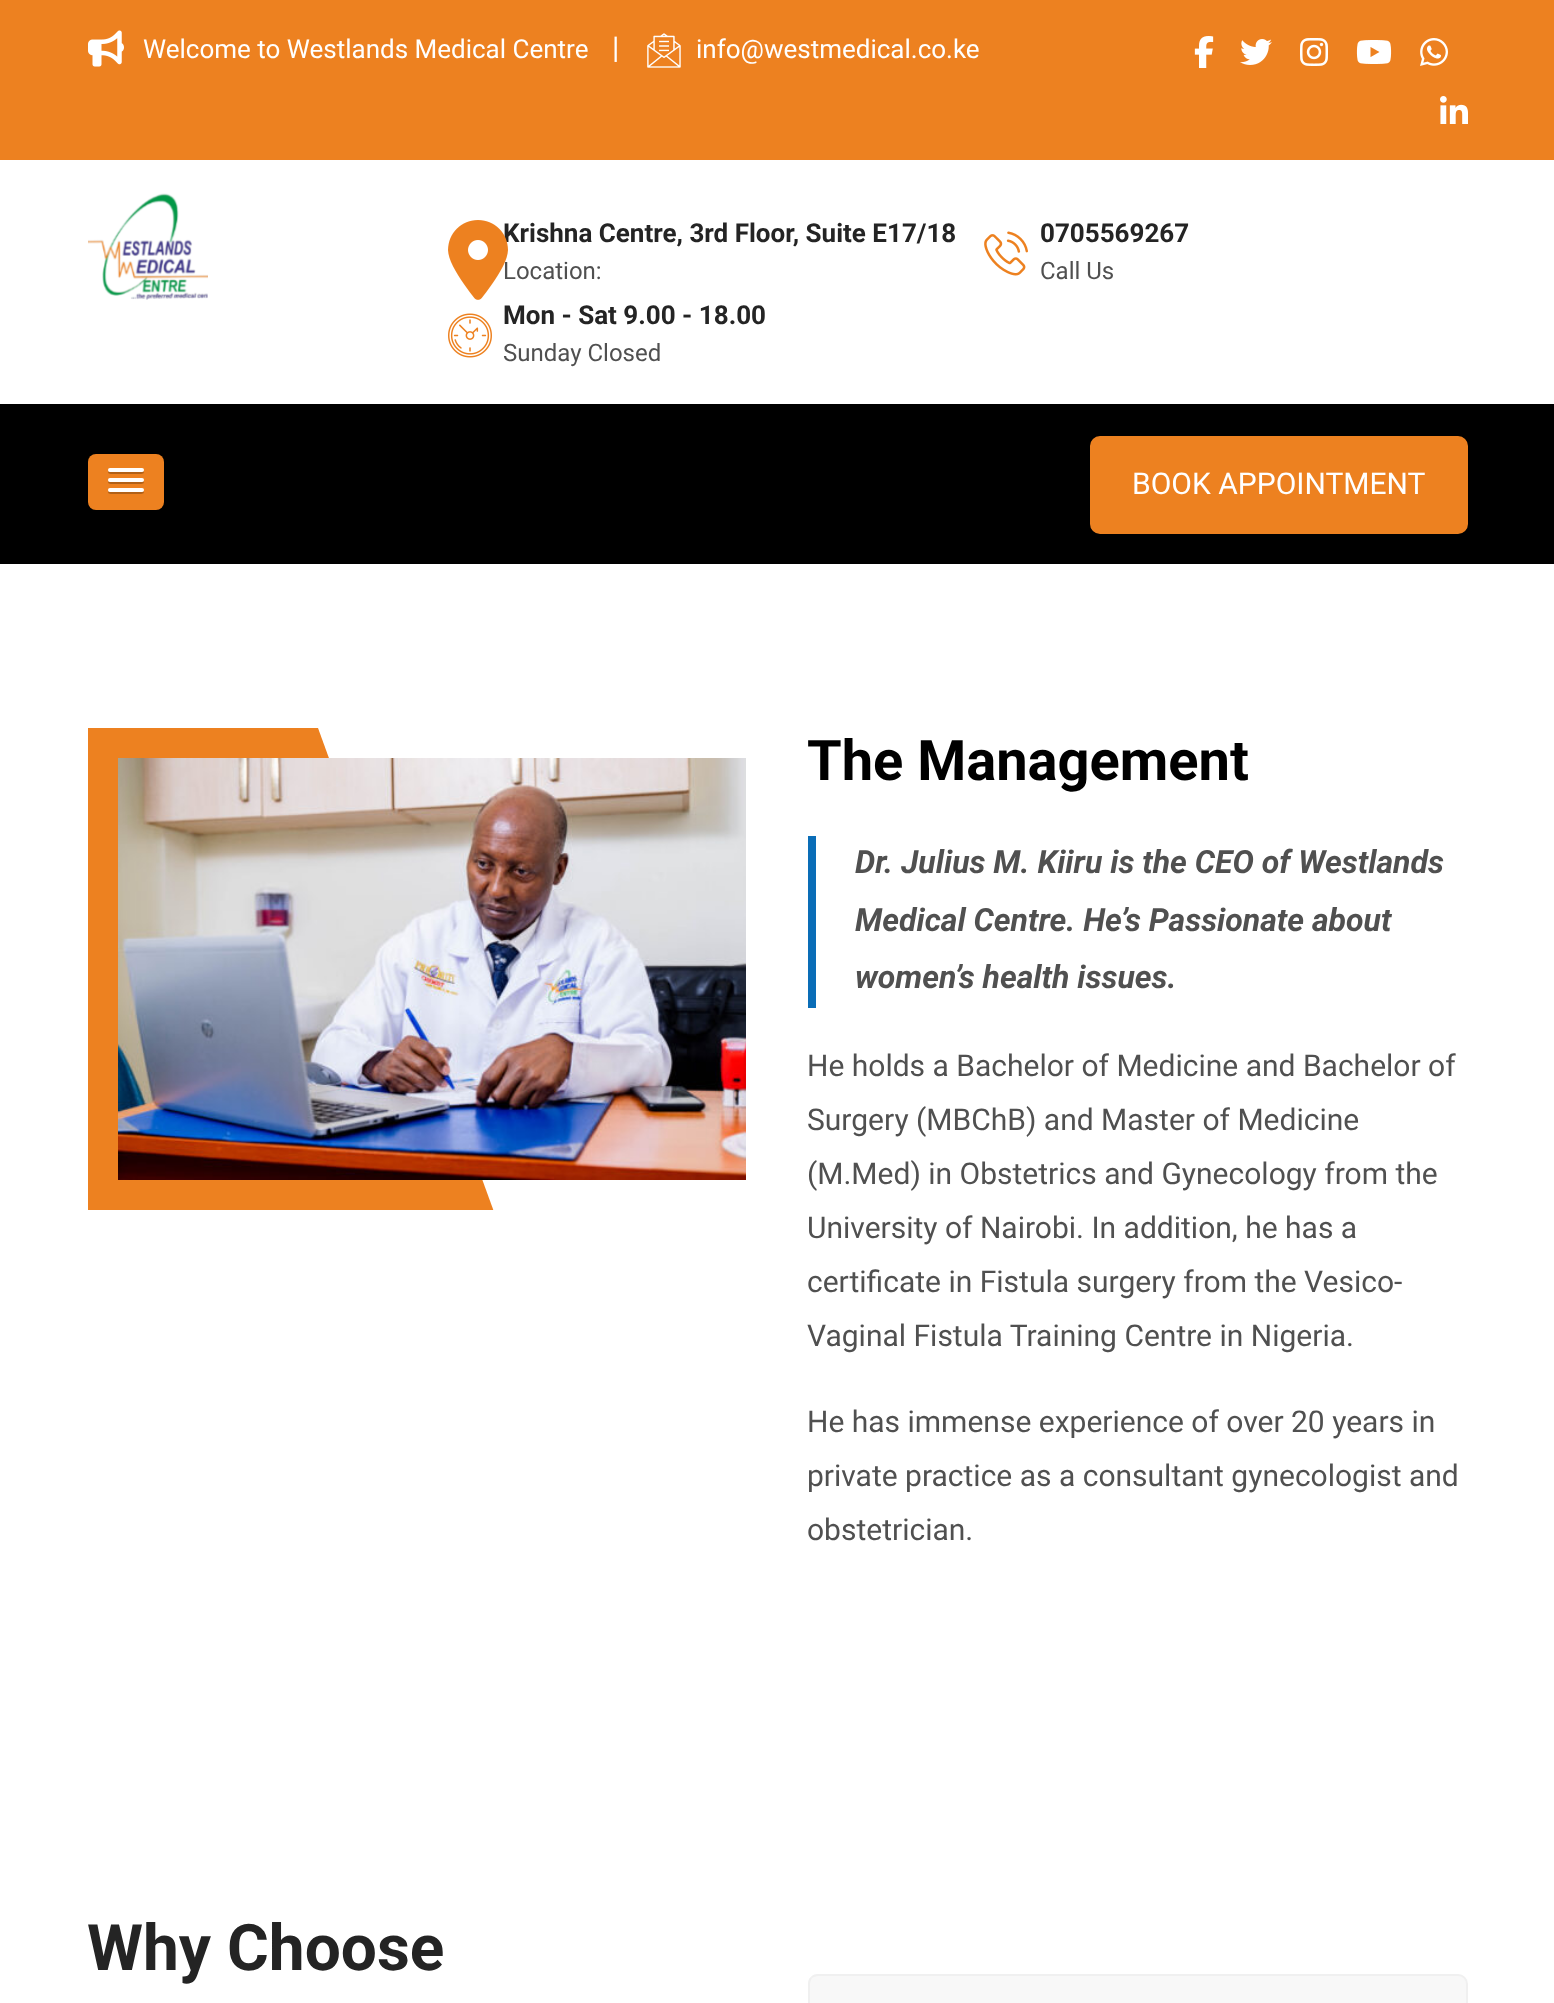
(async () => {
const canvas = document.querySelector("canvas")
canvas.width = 1554
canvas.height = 2003
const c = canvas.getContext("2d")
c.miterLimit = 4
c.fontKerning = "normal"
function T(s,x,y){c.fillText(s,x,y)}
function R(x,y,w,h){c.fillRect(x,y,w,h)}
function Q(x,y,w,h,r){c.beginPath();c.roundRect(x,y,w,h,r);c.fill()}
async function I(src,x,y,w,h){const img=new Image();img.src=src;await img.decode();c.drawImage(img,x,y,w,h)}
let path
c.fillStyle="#fff"
R(0,0,1554,2003)
c.fillStyle="#ed8120"
R(0,0,1554,160)
await I("1.png",88,30,36,37)
c.font="26px Roboto"
c.fillStyle="#fff"
T("Welcome to Westlands Medical Centre",143,58)
c.font="30px Roboto"
T("|",612,58)
await I("2.png",647,33,34,35)
c.font="26px Roboto"
T("info@westmedical.co.ke",696,58)
await I("3.png",1194,36,20,32)
await I("4.png",1240,39,32,26)
await I("5.png",1300,38,28,28)
await I("6.png",1356,40,36,24)
await I("7.png",1420,38,28,28)
await I("8.png",1440,96,28,28)
await I("9.png",88,193,120,107)
c.font="bold 26px Roboto"
c.fillStyle="#242424"
T("Krishna Centre, 3rd Floor, Suite E17/18",503,242)
c.font="24px Roboto"
c.fillStyle="#505050"
T("Location:",503,279)
await I("10.png",448,220,60,80)
await I("11.png",984,231,44,45)
c.font="bold 26px Roboto"
c.fillStyle="#242424"
T("0705569267",1040,242)
c.font="24px Roboto"
c.fillStyle="#505050"
T("Call Us",1040,279)
await I("12.png",448,313,44,45)
c.font="bold 26px Roboto"
c.fillStyle="#242424"
T("Mon - Sat 9.00 - 18.00",503,324)
c.font="24px Roboto"
c.fillStyle="#505050"
T("Sunday Closed",503,361)
c.fillStyle="#000"
R(0,404,1554,160)
c.fillStyle="#ed8120"
Q(88,454,76,56,8)
c.fillStyle="#b26118"
path = new Path2D("M108.5 471c-2.5 4 6.5 3 7 3h21c.5 0 9.5 1 7-3c0 .5-1 1-1.5 1h-32c-.5 0-1.5-.5-1.5-1z")
c.fill(path)
c.fillStyle="#fff"
Q(108,468,36,4,2)
c.fillStyle="#b26118"
path = new Path2D("M108.5 481c-2.5 4 6.5 3 7 3h21c.5 0 9.5 1 7-3c0 .5-1 1-1.5 1h-32c-.5 0-1.5-.5-1.5-1z")
c.fill(path)
c.fillStyle="#fff"
Q(108,478,36,4,2)
c.fillStyle="#b26118"
path = new Path2D("M108.5 491c-2.5 4 6.5 3 7 3h21c.5 0 9.5 1 7-3c0 .5-1 1-1.5 1h-32c-.5 0-1.5-.5-1.5-1z")
c.fill(path)
c.fillStyle="#fff"
Q(108,488,36,4,2)
c.fillStyle="#ed8120"
c.beginPath()
c.roundRect(1091,437,376,96,9)
c.fill()
c.strokeStyle="#ed8120"
c.lineWidth=2
c.stroke()
c.font="30px Roboto"
c.fillStyle="#fff"
T("BOOK APPOINTMENT",1132,494)
c.save()
c.beginPath()
c.rect(88,728,660,482)
c.clip()
c.fillStyle="#ed8120"
path = new Path2D("M87 93l462 1270v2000l-462-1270z")
c.fill(path)
c.restore()
await I("13.png",118,758,628,422)
c.font="bold 56px Roboto"
c.fillStyle="#000"
T("The Management",807,780)
c.fillStyle="#0a6db7"
R(808,836,8,172)
c.font="italic bold 32px Roboto"
c.fillStyle="#505050"
T("Dr. Julius M. Kiiru is the CEO of Westlands",855,873)
T("Medical Centre. He’s Passionate about",855,931)
T("women’s health issues.",855,988)
c.font="30px Roboto"
T("He holds a Bachelor of Medicine and Bachelor of",807,1076)
T("Surgery (MBChB) and Master of Medicine",807,1130)
T("(M.Med) in Obstetrics and Gynecology from the",807,1184)
T("University of Nairobi. In addition, he has a",807,1238)
T("certificate in Fistula surgery from the Vesico-",807,1292)
T("Vaginal Fistula Training Centre in Nigeria.",807,1346)
T("He has immense experience of over 20 years in",807,1432)
T("private practice as a consultant gynecologist and",807,1486)
T("obstetrician.",807,1540)
c.font="bold 64px Roboto"
c.fillStyle="#242424"
T("Why Choose",87,1970)
c.fillStyle="#f8f8f8"
path = new Path2D("M1095 1975h363c5 0 9 4 9 9v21c0 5-4 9-9 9h-354c-5 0-9-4-9-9z")
c.fill(path)
c.strokeStyle="#f0f0f0"
c.stroke(path)
path = new Path2D("M818 1974h278v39h-278c-5.5 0-10-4.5-10-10v-19c0-5.5 4.5-10 10-10z")
c.fill(path)
c.fillStyle="#f0f0f0"
path = new Path2D("M818 1974c-3 0-6 1-7 3l1 1c2-1 4-2 6-2h276l2-2z")
c.fill(path)
path = new Path2D("M808 1984v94c0 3 1 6 3 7l1-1c-1-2-2-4-2-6v-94c0-2 1-4 2-6l-1-1c-2 1-3 4-3 7z")
c.fill(path)
R(1094,1974,2,2)
})()
